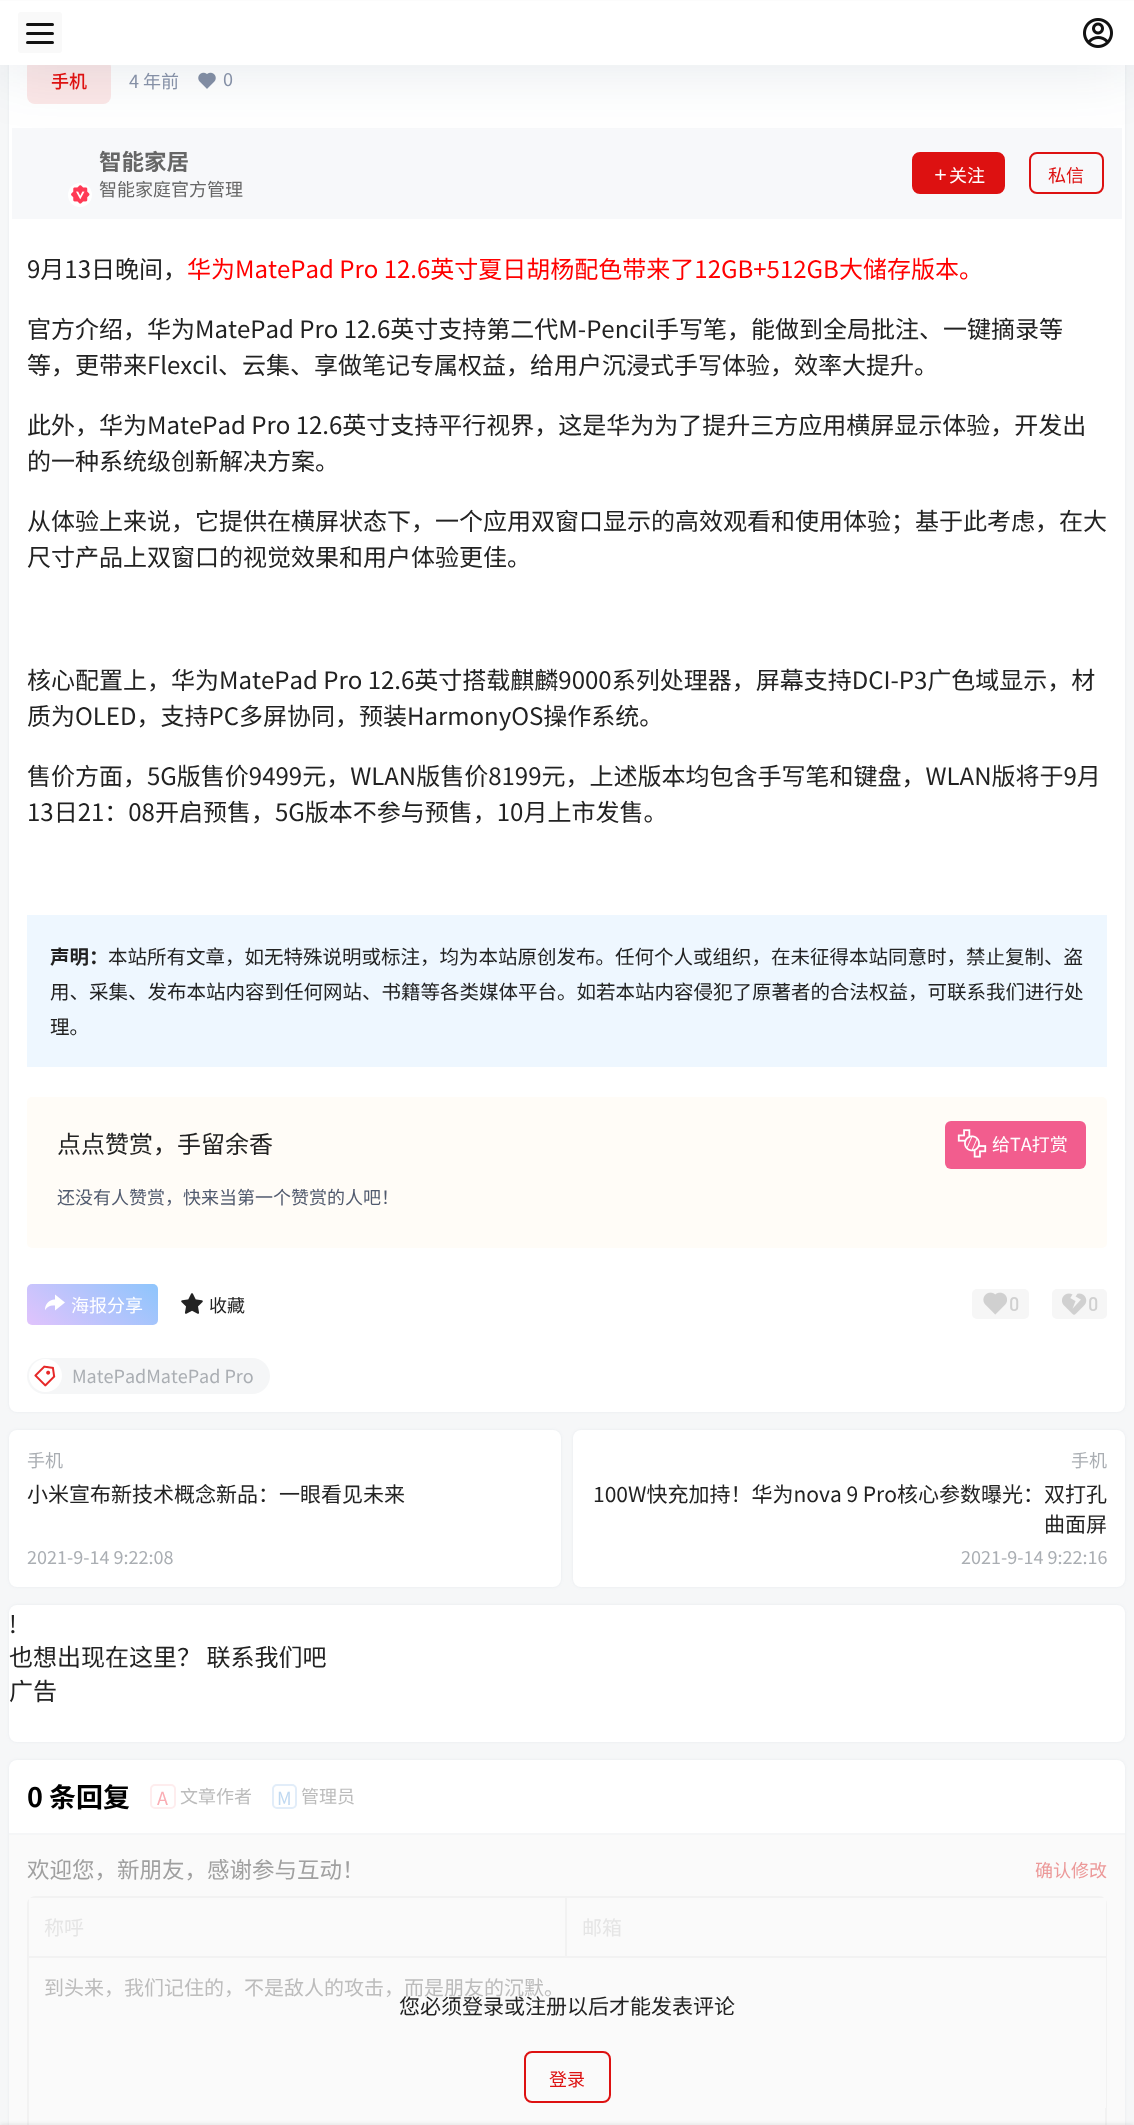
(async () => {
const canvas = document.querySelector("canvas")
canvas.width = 1134
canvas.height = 2125
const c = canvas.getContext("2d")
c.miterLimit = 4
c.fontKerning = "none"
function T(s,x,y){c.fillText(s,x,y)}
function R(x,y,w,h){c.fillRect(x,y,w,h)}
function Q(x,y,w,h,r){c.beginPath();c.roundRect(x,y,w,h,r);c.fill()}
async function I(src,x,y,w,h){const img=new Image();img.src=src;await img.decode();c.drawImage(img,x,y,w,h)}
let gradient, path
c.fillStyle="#f6f7f8"
R(0,0,1134,2125)
c.fillStyle="#627c991a"
c.filter="blur(1.5px)"
c.beginPath()
c.roundRect(9,-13,1116,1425,8)
c.fill()
c.filter="none"
c.fillStyle="#fff"
Q(9,-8,1116,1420,8)
c.fillStyle="#fce7e7"
Q(27,59,84,45,8)
await I("2.png",198,72,18,17)
c.fillStyle="#f7f8fa"
R(12,128,1110,91)
c.fillStyle="#d11"
c.beginPath()
c.roundRect(913,153,91,40,7)
c.fill()
c.strokeStyle="#d11"
c.lineWidth=2
c.stroke()
c.beginPath()
c.roundRect(1030,153,73,40,7)
c.stroke()
c.fillStyle="#113a5d1a"
c.filter="blur(30px)"
c.beginPath()
c.rect(0,-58,1134,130)
c.fill()
c.filter="none"
c.fillStyle="#fff"
R(0,1,1134,64)
c.fillStyle="#fcfcfc"
R(0,0,1134,1)
c.fillStyle="#f9f9f9"
Q(18,12,44,41,3)
c.fillStyle="#121212"
Q(26,23,28,3,1.5)
Q(26,32,28,3,1.5)
Q(26,41,28,3,1.5)
await I("1.png",1083,18,30,30)
c.font="500 18px Noto Sans CJK SC"
c.fillStyle="#d11"
T("手机",51,88)
c.font="18px Noto Sans CJK SC"
c.fillStyle="#8590a6"
T("4 年前",129,88)
T("0",223,86)
c.fillStyle="#fff"
c.beginPath()
c.arc(80,195,12,0,7)
c.fill()
await I("3.png",71,185,19,19)
c.font="bold 22.5px Noto Sans CJK SC"
c.fillStyle="#666"
T("智能家居",99,170)
c.font="18px Noto Sans CJK SC"
T("智能家庭官方管理",99,196)
await I("4.png",935,169,11,11)
c.fillStyle="#fff"
T("关注",949,182)
c.fillStyle="#d11"
T("私信",1048,182)
c.font="24px Noto Sans CJK SC"
c.fillStyle="#222"
T("9月13日晚间，",27,278)
c.fillStyle="#f00"
T("华为MatePad Pro 12.6英寸夏日胡杨配色带来了12GB+512GB大储存版本。",187,278)
c.fillStyle="#222"
T("官方介绍，华为MatePad Pro 12.6英寸支持第二代M-Pencil手写笔，能做到全局批注、一键摘录等",27,338)
T("等，更带来Flexcil、云集、享做笔记专属权益，给用户沉浸式手写体验，效率大提升。",27,374)
T("此外，华为MatePad Pro 12.6英寸支持平行视界，这是华为为了提升三方应用横屏显示体验，开发出",27,434)
T("的一种系统级创新解决方案。",27,470)
T("从体验上来说，它提供在横屏状态下，一个应用双窗口显示的高效观看和使用体验；基于此考虑，在大",27,530)
T("尺寸产品上双窗口的视觉效果和用户体验更佳。",27,566)
T("核心配置上，华为MatePad Pro 12.6英寸搭载麒麟9000系列处理器，屏幕支持DCI-P3广色域显示，材",27,689)
T("质为OLED，支持PC多屏协同，预装HarmonyOS操作系统。",27,725)
T("售价方面，5G版售价9499元，WLAN版售价8199元，上述版本均包含手写笔和键盘，WLAN版将于9月",27,785)
T("13日21：08开启预售，5G版本不参与预售，10月上市发售。",27,821)
c.fillStyle="#eef7ff"
R(27,915,1080,152)
c.font="bold 19.5px Noto Sans CJK SC"
c.fillStyle="#222"
T("声明：",50,964)
c.font="19.5px Noto Sans CJK SC"
T("本站所有文章，如无特殊说明或标注，均为本站原创发布。任何个人或组织，在未征得本站同意时，禁止复制、盗",108,964)
T("用、采集、发布本站内容到任何网站、书籍等各类媒体平台。如若本站内容侵犯了原著者的合法权益，可联系我们进行处",50,999)
T("理。",50,1034)
c.fillStyle="#fffcf7"
Q(27,1097,1080,151,5)
c.font="24px Noto Sans CJK SC"
c.fillStyle="#222"
T("点点赞赏，手留余香",57,1153)
c.fillStyle="#f25d8e"
Q(945,1121,141,48,6)
await I("5.png",957,1129,30,29)
c.font="18px Noto Sans CJK SC"
c.fillStyle="#fff"
T("给TA打赏",992,1151)
c.fillStyle="#515a6e"
T("还没有人赞赏，快来当第一个赞赏的人吧！",57,1204)
gradient = c.createLinearGradient(55,1348,129,1260)
gradient.addColorStop(0,"#e0c3fc")
gradient.addColorStop(1,"#8ec5fc")
c.fillStyle = gradient
Q(27,1284,131,41,5)
await I("6.png",45,1294,20,17)
c.fillStyle="#fff"
T("海报分享",71,1312)
await I("7.png",181,1293,22,21)
c.fillStyle="#222"
T("收藏",209,1312)
c.fillStyle="#f6f6f6"
Q(972,1289,57,30,5)
await I("8.png",983,1292,24,23)
c.font="500 19.5px DIN"
c.fillStyle="#d0d0d0"
T("0",1009,1311)
c.fillStyle="#f6f6f6"
Q(1052,1289,55,30,5)
await I("9.png",1062,1293,25,22)
c.fillStyle="#d0d0d0"
T("0",1088,1311)
c.fillStyle="#f5f6f7"
Q(27,1358,243,36,18)
c.fillStyle="#fff"
c.beginPath()
c.arc(45.5,1375.5,16.5,0,7)
c.fill()
await I("10.png",34,1365,22,22)
c.font="18px Noto Sans CJK SC"
c.fillStyle="#aaaeb3"
T("MatePadMatePad Pro",72,1383)
c.fillStyle="#627c991a"
c.filter="blur(1.5px)"
c.beginPath()
c.roundRect(9,1430,552,157,8)
c.fill()
c.filter="none"
c.fillStyle="#fff"
Q(9,1430,552,157,8)
c.fillStyle="#aaaeb3"
T("手机",27,1467)
c.font="21px Noto Sans CJK SC"
c.fillStyle="#222"
T("小米宣布新技术概念新品：一眼看见未来",27,1502)
c.font="18px Noto Sans CJK SC"
c.fillStyle="#aaaeb3"
T("2021-9-14 9:22:08",27,1564)
c.fillStyle="#627c991a"
c.filter="blur(1.5px)"
c.beginPath()
c.roundRect(573,1430,552,157,8)
c.fill()
c.filter="none"
c.fillStyle="#fff"
Q(573,1430,552,157,8)
c.fillStyle="#aaaeb3"
T("手机",1071,1467)
c.font="21px Noto Sans CJK SC"
c.fillStyle="#222"
T("100W快充加持！华为nova 9 Pro核心参数曝光：双打孔",593,1502)
T("曲面屏",1044,1532)
c.font="18px Noto Sans CJK SC"
c.fillStyle="#aaaeb3"
T("2021-9-14 9:22:16",961,1564)
c.fillStyle="#627c991a"
c.filter="blur(1.5px)"
c.beginPath()
c.roundRect(9,1605,1116,137,8)
c.fill()
c.filter="none"
c.fillStyle="#fff"
Q(9,1605,1116,137,8)
c.font="24px Noto Sans CJK SC"
c.fillStyle="#222"
T("!",9,1633)
T("也想出现在这里？ 联系我们吧",9,1666)
T("广告",9,1700)
c.fillStyle="#627c991a"
c.filter="blur(1.5px)"
c.beginPath()
c.roundRect(9,1760,1116,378,8)
c.fill()
c.filter="none"
c.fillStyle="#fff"
Q(9,1760,1116,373,8)
c.fillStyle="#fafafa"
R(9,1835,1116,290)
c.fillStyle="#f5f6f7"
R(9,1833,1116,2)
c.font="bold 27px Noto Sans CJK SC"
c.fillStyle="#000"
T("0 条回复",27,1807)
c.beginPath()
c.roundRect(151,1785,24,23,4)
c.strokeStyle="#feedee"
c.stroke()
c.font="18px Noto Sans CJK SC"
c.fillStyle="#faadb4"
T("A",157,1805)
c.fillStyle="#bcbcbc"
T("文章作者",180,1803)
c.beginPath()
c.roundRect(273,1785,23,23,4)
c.strokeStyle="#e2edf9"
c.stroke()
c.fillStyle="#c0d9f1"
T("M",277,1805)
c.fillStyle="#bcbcbc"
T("管理员",301,1803)
c.font="22.5px Noto Sans CJK SC"
c.fillStyle="#a0a0a0"
T("欢迎您，新朋友，感谢参与互动！",27,1878)
c.font="18px Noto Sans CJK SC"
c.fillStyle="#ec9999"
T("确认修改",1035,1877)
c.fillStyle="#f2f2f2"
path = new Path2D("M35 1896c-2 0-4 1-5 2h535v58h-536v-57c-1 1-2 3-2 5v54h540v-62z")
c.fill(path)
c.font="20px Noto Sans CJK SC"
c.fillStyle="#e5e5e5"
T("称呼",44,1935)
c.save()
c.beginPath()
c.roundRect(27,1896,1080,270,8)
c.clip()
c.fillStyle="#f2f2f2"
R(567,1896,540,2)
R(1106,1896,1,62)
c.restore()
T("邮箱",582,1935)
c.fillStyle="#f2f2f2"
path = new Path2D("M29 1958h1076v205c1-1 2-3 2-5v-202h-1080v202c0 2 1 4 2 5zm1070 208c2 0 4-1 5-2h-1074c1 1 3 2 5 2z")
c.fill(path,"evenodd")
c.fillStyle="#fafafa"
R(1105,1958,1,150)
c.fillStyle="#bcbcbc"
T("到头来，我们记住的，不是敌人的攻击，而是朋友的沉默。",44,1995)
c.font="21px Noto Sans CJK SC"
c.fillStyle="#222"
T("您必须登录或注册以后才能发表评论",399,2014)
c.beginPath()
c.roundRect(525,2052,85,50,7)
c.strokeStyle="#d11"
c.stroke()
c.font="18px Noto Sans CJK SC"
c.fillStyle="#d11"
T("登录",549,2086)
c.fillStyle="#1a1a1a1a"
c.filter="blur(2px)"
c.beginPath()
c.rect(0,2124,1134,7)
c.fill()
c.filter="none"
})()
